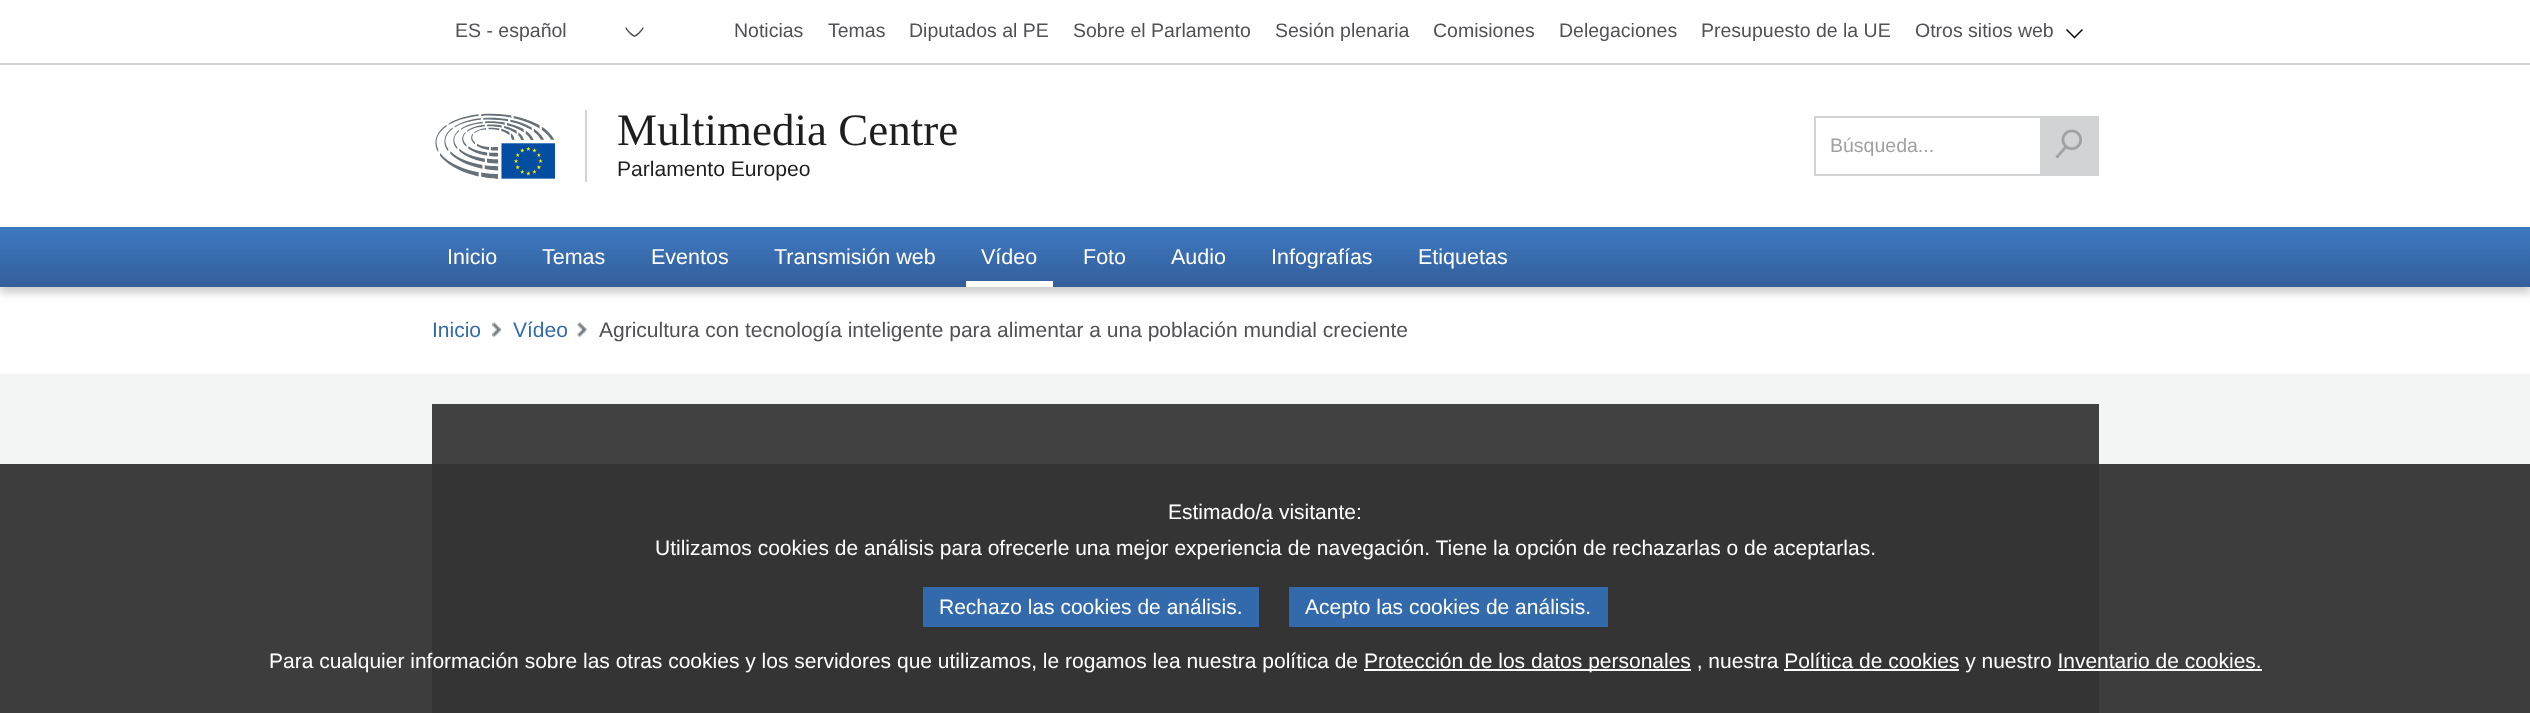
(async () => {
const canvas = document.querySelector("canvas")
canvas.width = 2530
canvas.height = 713
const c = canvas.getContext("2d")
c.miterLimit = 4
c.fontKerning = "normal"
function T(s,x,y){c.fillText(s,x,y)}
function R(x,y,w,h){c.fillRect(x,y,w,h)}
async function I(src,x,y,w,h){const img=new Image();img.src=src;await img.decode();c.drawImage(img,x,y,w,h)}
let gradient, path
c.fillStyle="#fff"
R(0,0,2530,713)
c.fillStyle="#d1d3d4"
R(0,63,2530,2)
c.font="19.5px Liberation Sans"
c.fillStyle="#505154"
T("ES - español",455,37)
path = new Path2D("M643 27.5c0 2-2.5 3.5-3.5 5c-5.5 5-4.5 5-10 0c-1-1.5-3.5-3-3.5-5")
c.strokeStyle="#505154"
c.lineWidth=1.5
c.stroke(path)
T("Noticias",734,37)
T("Temas",828,37)
T("Diputados al PE",909,37)
T("Sobre el Parlamento",1073,37)
T("Sesión plenaria",1275,37)
T("Comisiones",1433,37)
T("Delegaciones",1559,37)
T("Presupuesto de la UE",1701,37)
T("Otros sitios web",1915,37)
c.fillStyle="#000"
path = new Path2D("M2082 29l1 1l-8.5 8.5l-1-1z")
c.fill(path)
path = new Path2D("M2067 29l8.5 8.5l-1 1l-8.5-8.5z")
c.fill(path)
await I("1.png",435,113,120,66)
c.fillStyle="#d1d3d4"
R(585,110,2,72)
c.font="45px Liberation Serif"
c.fillStyle="#1e1e1f"
T("Multimedia Centre",617,145)
c.font="21.1px Liberation Sans"
T("Parlamento Europeo",617,176)
c.strokeStyle="#d1d3d4"
c.lineWidth=2
c.strokeRect(1815,117,283,58)
c.font="19.5px Liberation Sans"
c.fillStyle="#a2a1a2"
T("Búsqueda...",1830,152)
c.fillStyle="#d1d3d4"
R(2040,118,57,56)
await I("2.png",2055,129,27,30)
c.fillStyle="#00000033"
c.filter="blur(4px)"
c.beginPath()
c.rect(0,233,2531,60)
c.fill()
c.filter="none"
gradient = c.createLinearGradient(1265,226,1265,287)
gradient.addColorStop(0,"#3d7ac1")
gradient.addColorStop(1,"#345e9c")
c.fillStyle = gradient
R(0,227,2530,60)
c.font="21.5px Liberation Sans"
c.fillStyle="#fff"
T("Inicio",447,264)
T("Temas",542,264)
T("Eventos",651,264)
T("Transmisión web",774,264)
T("Vídeo",981,264)
R(966,281,87,6)
T("Foto",1083,264)
T("Audio",1171,264)
T("Infografías",1271,264)
T("Etiquetas",1418,264)
c.font="21px Liberation Sans"
c.fillStyle="#326aab"
T("Inicio",432,337)
await I("3.png",492,322,10,16)
T("Vídeo",513,337)
await I("4.png",577,322,10,16)
c.fillStyle="#505154"
T("Agricultura con tecnología inteligente para alimentar a una población mundial creciente",599,337)
c.fillStyle="#f3f4f4"
R(0,374,2530,90)
c.fillStyle="#3d3d3d"
R(0,464,2530,249)
c.fillStyle="#414141"
R(432,404,1667,60)
c.fillStyle="#343434"
R(432,464,1667,249)
c.fillStyle="#fff"
T("Estimado/a visitante:",1168,519)
T("Utilizamos cookies de análisis para ofrecerle una mejor experiencia de navegación. Tiene la opción de rechazarlas o de aceptarlas.",655,555)
c.fillStyle="#326aab"
R(923,587,336,40)
c.fillStyle="#fff"
T("Rechazo las cookies de análisis.",939,614)
c.fillStyle="#326aab"
R(1289,587,319,40)
c.fillStyle="#fff"
T("Acepto las cookies de análisis.",1305,614)
T("Para cualquier información sobre las otras cookies y los servidores que utilizamos, le rogamos lea nuestra política de",269,668)
R(1364,669,327,2)
T("Protección de los datos personales , nuestra Política de cookies y nuestro Inventario de cookies.",1364,668)
R(1784,669,175,2)
R(2058,669,204,2)
})()
